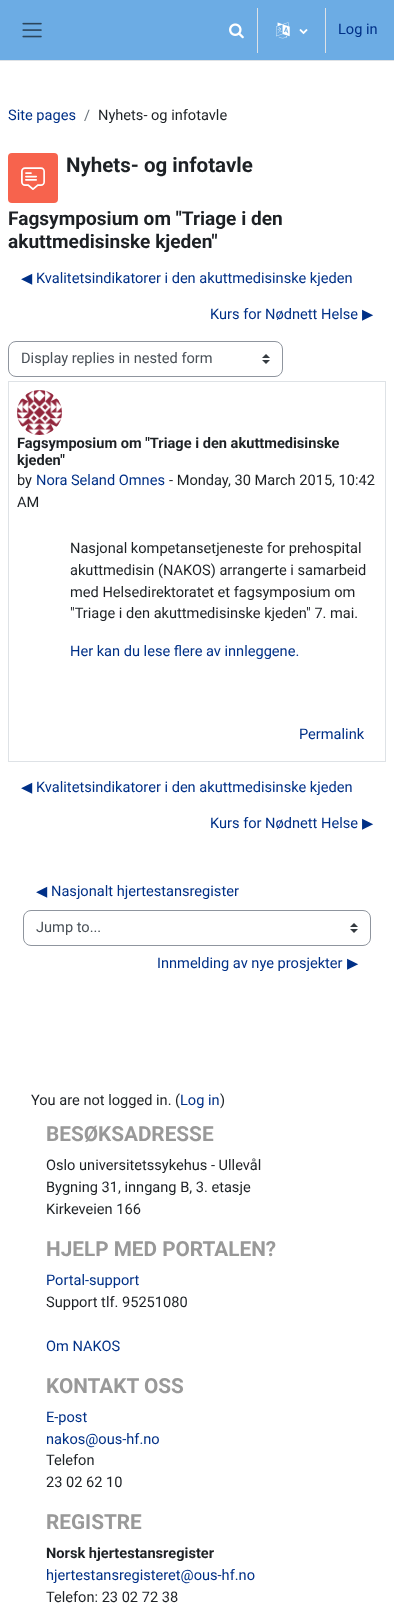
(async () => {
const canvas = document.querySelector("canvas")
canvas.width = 394
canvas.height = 1609
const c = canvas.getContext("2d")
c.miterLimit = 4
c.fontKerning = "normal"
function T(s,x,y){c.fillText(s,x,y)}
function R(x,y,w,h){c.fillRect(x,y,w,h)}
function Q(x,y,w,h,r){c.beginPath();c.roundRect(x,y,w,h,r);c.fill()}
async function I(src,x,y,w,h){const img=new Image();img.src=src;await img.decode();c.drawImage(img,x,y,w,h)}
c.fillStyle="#fff"
R(0,0,394,1609)
c.fillStyle="#6cace4"
R(0,0,394,60)
c.fillStyle="#dee2e6"
R(0,60,394,1)
await I("1.png",22,22,20,16)
await I("2.png",229,23,15,16)
R(257,8,1,45)
await I("3.png",276,22,14,17)
await I("4.png",299,29,9,6)
R(325,8,1,45)
c.font="14.6px Roboto"
c.fillStyle="#003087"
T("Log in",338,34)
T("Site pages",8,120)
c.fillStyle="#6a737b"
T("/",84,120)
c.fillStyle="#1d2125"
T("Nyhets- og infotavle",98,120)
c.fillStyle="#f7634d"
Q(8,153,50,50,4)
await I("5.png",21,167,24,23)
c.font="bold 20.5px Roboto"
c.fillStyle="#1d2125"
T("Nyhets- og infotavle",66,172)
c.font="bold 19.1px Roboto"
T("Fagsymposium om \"Triage i den",8,225)
T("akuttmedisinske kjeden\"",8,248)
c.font="14.6px DejaVu Sans"
c.fillStyle="#003087"
T("◀︎",21,283)
c.font="14.6px Roboto"
T("Kvalitetsindikatorer i den akuttmedisinske kjeden",36,283)
T("Kurs for Nødnett Helse",210,319)
c.font="14.6px DejaVu Sans"
T("▶︎",362,319)
await I("6.png",262,354,8,10)
c.beginPath()
c.roundRect(8.5,341.5,274,35,7.5)
c.strokeStyle="#8f959e"
c.stroke()
c.font="14.6px Roboto"
c.fillStyle="#495057"
T("Display replies in nested form",21,363)
c.strokeStyle="#dee2e6"
c.strokeRect(8.5,381.5,377,380)
await I("7.png",17,390,45,45)
c.font="bold 14.6px Roboto"
c.fillStyle="#1d2125"
T("Fagsymposium om \"Triage i den akuttmedisinske",17,448)
T("kjeden\"",17,465)
c.font="14.6px Roboto"
T("by",17,485)
c.fillStyle="#003087"
T("Nora Seland Omnes",36,485)
c.fillStyle="#1d2125"
T("- Monday, 30 March 2015, 10:42",169,485)
T("AM",17,507)
T("Nasjonal kompetansetjeneste for prehospital",70,553)
T("akuttmedisin (NAKOS) arrangerte i samarbeid",70,575)
T("med Helsedirektoratet et fagsymposium om",70,597)
T("\"Triage i den akuttmedisinske kjeden\" 7. mai.",70,618)
c.fillStyle="#003087"
T("Her kan du lese flere av innleggene.",70,656)
T("Permalink",299,739)
c.font="14.6px DejaVu Sans"
T("◀︎",21,792)
c.font="14.6px Roboto"
T("Kvalitetsindikatorer i den akuttmedisinske kjeden",36,792)
T("Kurs for Nødnett Helse",210,828)
c.font="14.6px DejaVu Sans"
T("▶︎",362,828)
T("◀︎",36,896)
c.font="14.6px Roboto"
T("Nasjonalt hjertestansregister",51,896)
await I("6.png",350,923,8,10)
c.beginPath()
c.roundRect(23.5,910.5,347,35,7.5)
c.strokeStyle="#8f959e"
c.stroke()
c.fillStyle="#495057"
T("Jump to...",36,932)
c.fillStyle="#003087"
T("Innmelding av nye prosjekter",157,968)
c.font="14.6px DejaVu Sans"
T("▶︎",347,968)
c.font="14.6px Roboto"
c.fillStyle="#1d2125"
T("You are not logged in. (",31,1105)
c.fillStyle="#003087"
T("Log in",180,1105)
c.fillStyle="#1d2125"
T(")",220,1105)
c.font="bold 20.75px Roboto"
c.fillStyle="#999"
T("BESØKSADRESSE",46,1141)
c.font="14.6px Roboto"
c.fillStyle="#1d2125"
T("Oslo universitetssykehus - Ullevål",46,1170)
T("Bygning 31, inngang B, 3. etasje",46,1192)
T("Kirkeveien 166",46,1214)
c.font="bold 20.75px Roboto"
c.fillStyle="#999"
T("HJELP MED PORTALEN?",46,1256)
c.font="14.6px Roboto"
c.fillStyle="#003087"
T("Portal-support",46,1285)
c.fillStyle="#1d2125"
T("Support tlf. 95251080",46,1307)
c.fillStyle="#003087"
T("Om NAKOS",46,1351)
c.font="bold 20.75px Roboto"
c.fillStyle="#999"
T("KONTAKT OSS",46,1393)
c.font="14.6px Roboto"
c.fillStyle="#003087"
T("E-post",46,1422)
T("nakos@ous-hf.no",46,1444)
c.fillStyle="#1d2125"
T("Telefon",46,1465)
T("23 02 62 10",46,1487)
c.font="bold 20.75px Roboto"
c.fillStyle="#999"
T("REGISTRE",46,1529)
c.font="bold 14.6px Roboto"
c.fillStyle="#1d2125"
T("Norsk hjertestansregister",46,1558)
c.font="14.6px Roboto"
c.fillStyle="#003087"
T("hjertestansregisteret@ous-hf.no",46,1580)
c.fillStyle="#1d2125"
T("Telefon: 23 02 72 38",46,1602)
})()
